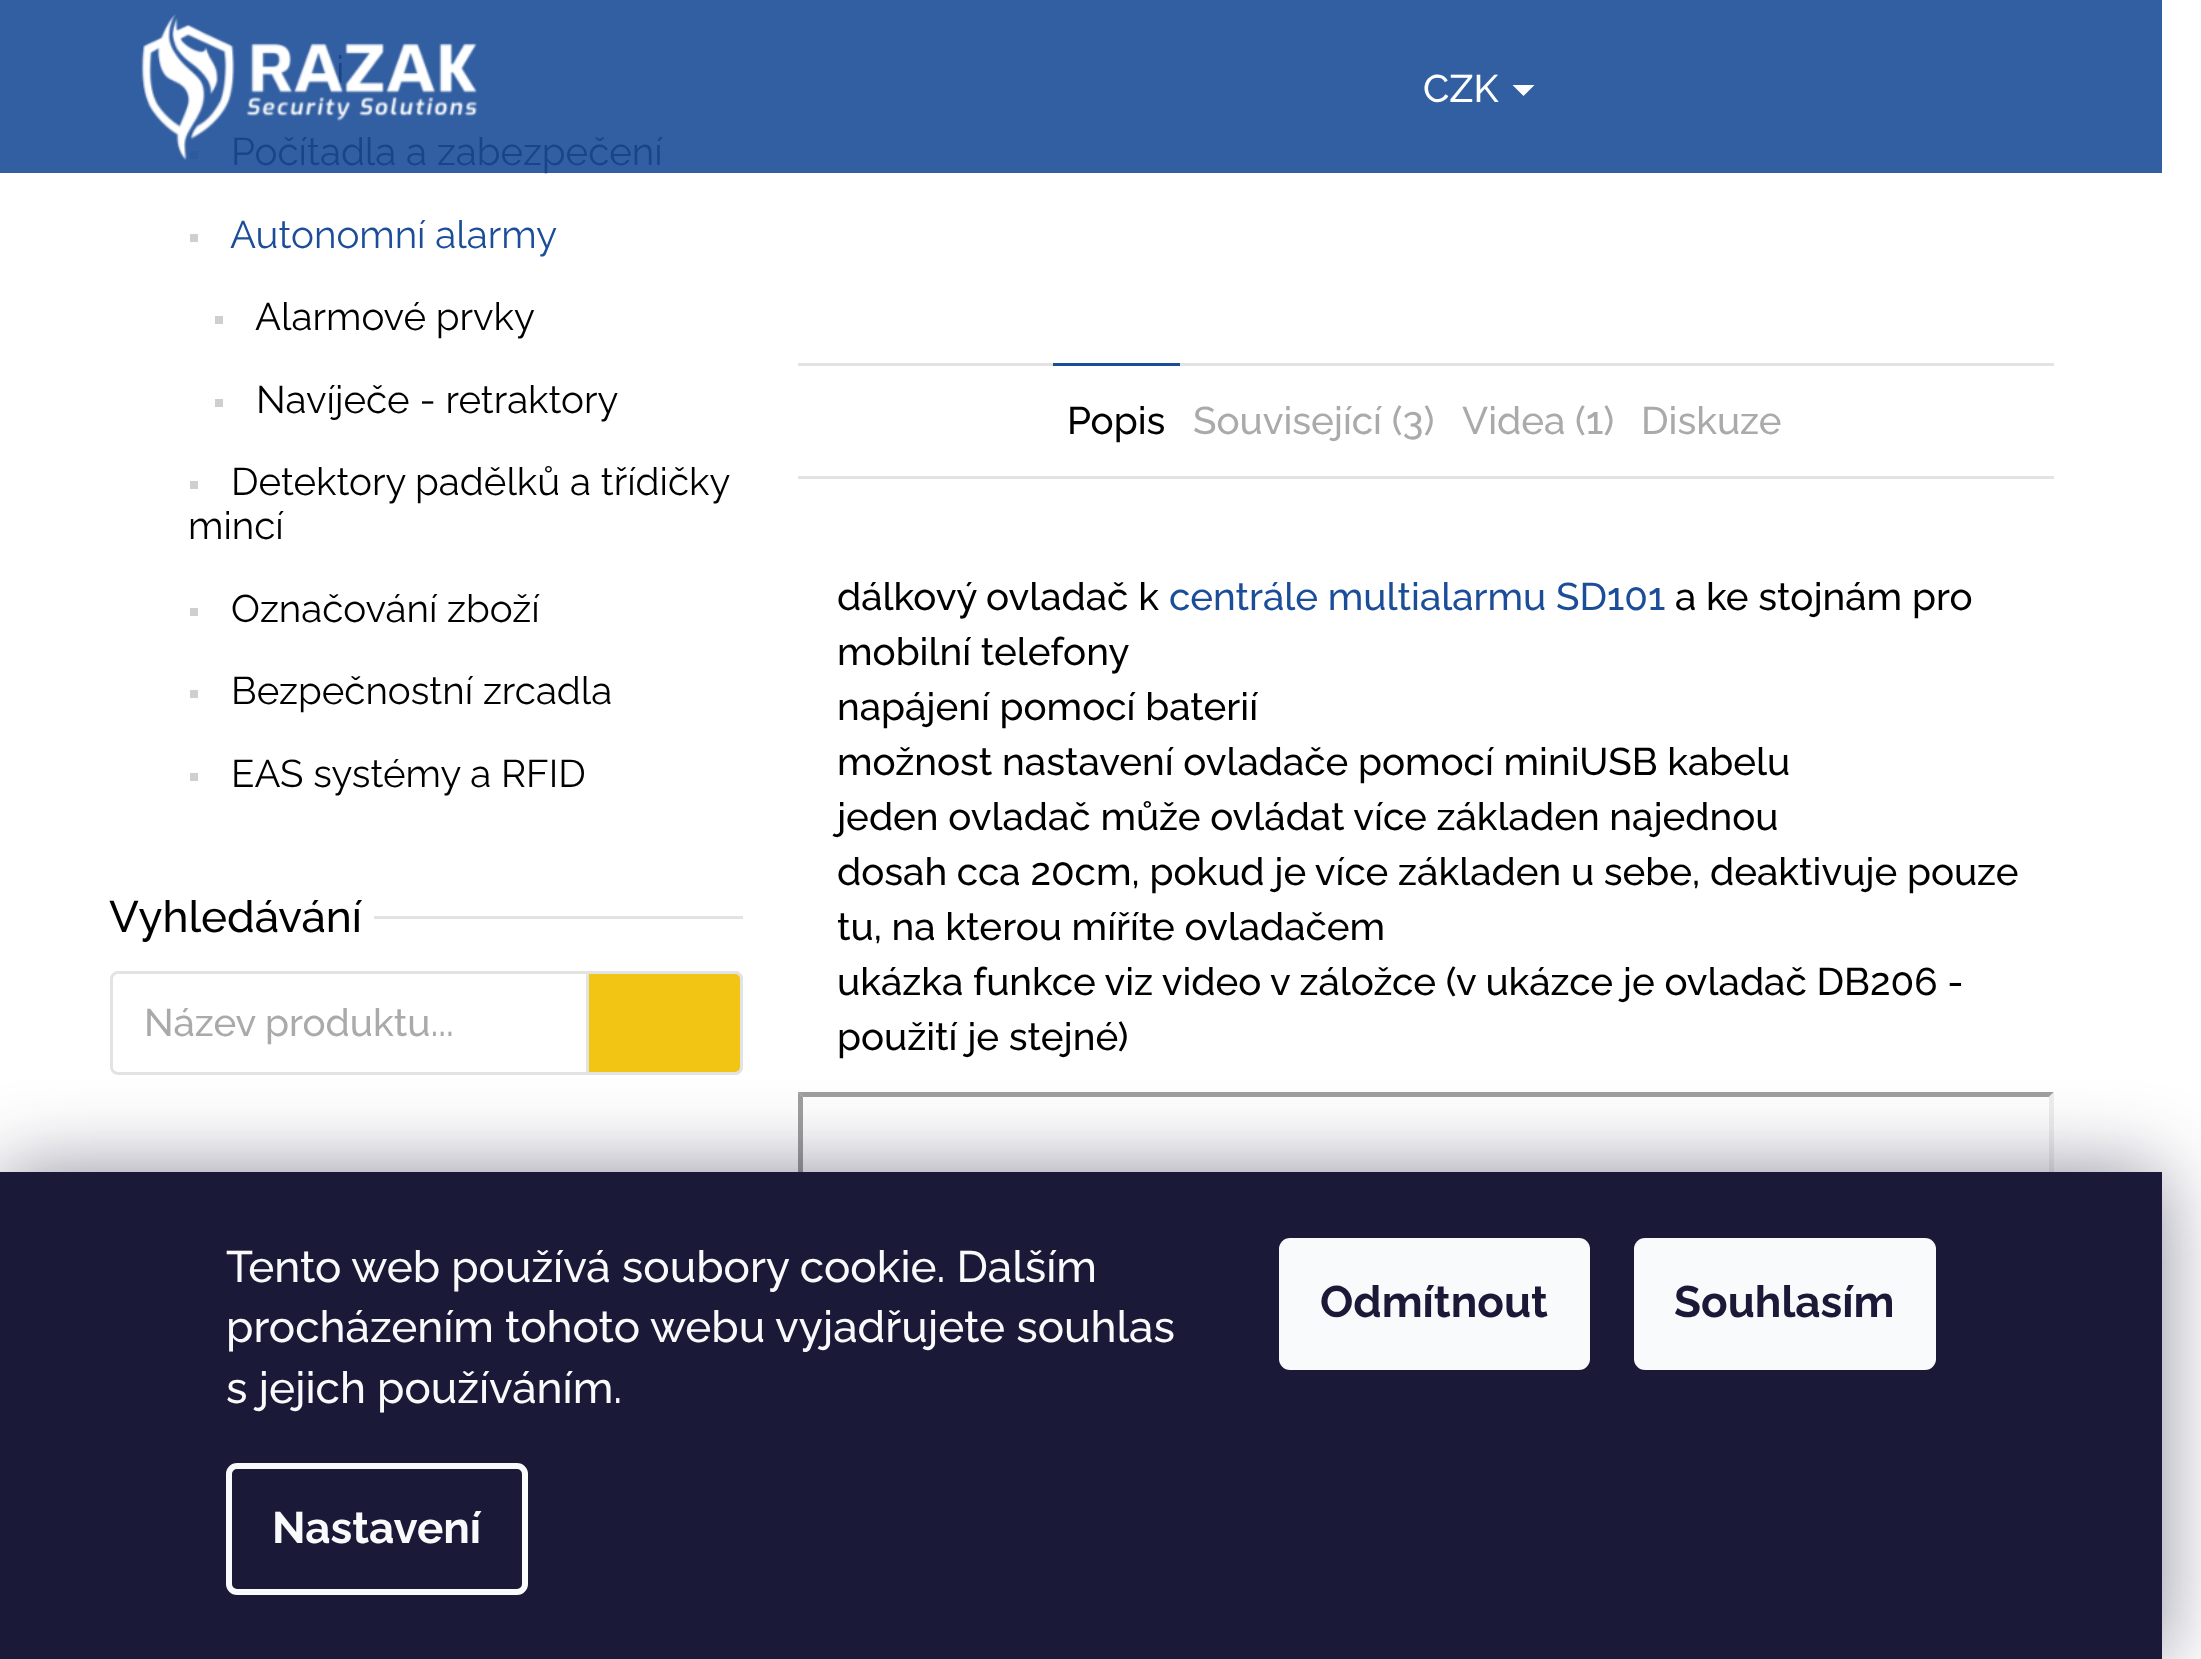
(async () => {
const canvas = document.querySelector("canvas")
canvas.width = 2201
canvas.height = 1659
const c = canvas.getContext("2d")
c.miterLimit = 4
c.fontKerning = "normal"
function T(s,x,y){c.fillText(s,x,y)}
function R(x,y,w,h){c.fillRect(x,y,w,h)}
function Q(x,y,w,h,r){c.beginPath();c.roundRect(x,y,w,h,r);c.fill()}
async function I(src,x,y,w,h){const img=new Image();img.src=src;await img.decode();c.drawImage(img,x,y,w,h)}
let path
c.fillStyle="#fff"
R(0,0,2201,1659)
c.fillStyle="#325fa2"
R(0,0,2162,173)
c.fillStyle="#2d5a9e"
R(190,69,8,8)
c.font="38.5px Raleway"
c.fillStyle="#184589"
T("i",336,83)
c.fillStyle="#2d5a9e"
R(190,151,8,8)
c.fillStyle="#184589"
T("Počítadla a zabezpečení",231,165)
c.fillStyle="#cfcfcf"
R(190,234,8,8)
c.fillStyle="#1b4d99"
T("Autonomní alarmy",230,248)
c.fillStyle="#cfcfcf"
R(215,316,8,8)
c.fillStyle="#000"
T("Alarmové prvky",255,330)
c.fillStyle="#cfcfcf"
R(215,399,8,8)
c.fillStyle="#000"
T("Navíječe - retraktory",256,413)
c.fillStyle="#cfcfcf"
R(190,481,8,8)
c.fillStyle="#000"
T("Detektory padělků a třídičky",231,495)
T("mincí",188,539)
c.fillStyle="#cfcfcf"
R(190,608,8,8)
c.fillStyle="#000"
T("Označování zboží",231,622)
c.fillStyle="#cfcfcf"
R(190,690,8,8)
c.fillStyle="#000"
T("Bezpečnostní zrcadla",231,704)
c.fillStyle="#cfcfcf"
R(190,773,8,8)
c.fillStyle="#000"
T("EAS systémy a RFID",231,787)
c.font="500 44px Raleway"
T("Vyhledávání",109,932)
c.fillStyle="#e3e3e3"
R(374,916,369,3)
c.beginPath()
c.roundRect(111.5,972.5,630,101,6.5)
c.strokeStyle="#e3e3e3"
c.lineWidth=3
c.stroke()
c.font="500 38.5px Raleway"
c.fillStyle="#aaa"
T("Název produktu...",144,1036)
c.fillStyle="#f2c514"
c.beginPath()
c.roundRect(587.5,972.5,154,101,[0,6.5,6.5,0])
c.fill()
c.stroke()
c.fillStyle="#e3e3e3"
R(798,363,1256,3)
R(798,476,1256,3)
c.fillStyle="#1b4d99"
R(1053,363,127,3)
c.fillStyle="#000"
T("Popis",1067,434)
c.fillStyle="#aaa"
T("Související (3)",1193,434)
T("Videa (1)",1462,434)
T("Diskuze",1641,434)
c.fillStyle="#000"
T("dálkový ovladač k",837,610)
c.fillStyle="#1b4d99"
T("centrále multialarmu SD101",1169,610)
c.fillStyle="#000"
T("a ke stojnám pro",1675,610)
T("mobilní telefony",837,665)
T("napájení pomocí baterií",837,720)
T("možnost nastavení ovladače pomocí miniUSB kabelu",837,775)
T("jeden ovladač může ovládat více základen najednou",837,830)
T("dosah cca 20cm, pokud je více základen u sebe, deaktivuje pouze",837,885)
T("tu, na kterou míříte ovladačem",837,940)
T("ukázka funkce viz video v záložce (v ukázce je ovladač DB206 -",837,995)
T("použití je stejné)",837,1050)
c.fillStyle="#9f9f9f"
path = new Path2D("M798 1092h1256l-5 5h-1246z")
c.fill(path)
path = new Path2D("M798 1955v-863l5 5v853z")
c.fill(path)
c.fillStyle="#eee"
path = new Path2D("M2054 1092v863l-5-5v-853z")
c.fill(path)
await I("1.png",141,14,337,146)
c.fillStyle="#fff"
T("CZK",1423,102)
path = new Path2D("M1512.5 85h22l-11 11z")
c.fill(path)
c.fillStyle="#1b193980"
c.filter="blur(41px)"
c.beginPath()
c.rect(0,1172,2162,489)
c.fill()
c.filter="none"
c.fillStyle="#1a1937"
R(0,1172,2162,487)
c.font="500 44px Raleway"
c.fillStyle="#f8fafb"
T("Tento web používá soubory cookie. Dalším",226,1282)
T("procházením tohoto webu vyjadřujete souhlas",226,1342)
T("s jejich používáním.",226,1403)
c.beginPath()
c.roundRect(229,1466,296,126,8)
c.strokeStyle="#f8fafb"
c.lineWidth=6
c.stroke()
c.font="bold 44px Raleway"
T("Nastavení",272,1543)
Q(1279,1238,311,132,11)
c.fillStyle="#1a1937"
T("Odmítnout",1320,1317)
c.fillStyle="#f8fafb"
Q(1634,1238,302,132,11)
c.fillStyle="#1a1937"
T("Souhlasím",1674,1317)
})()
